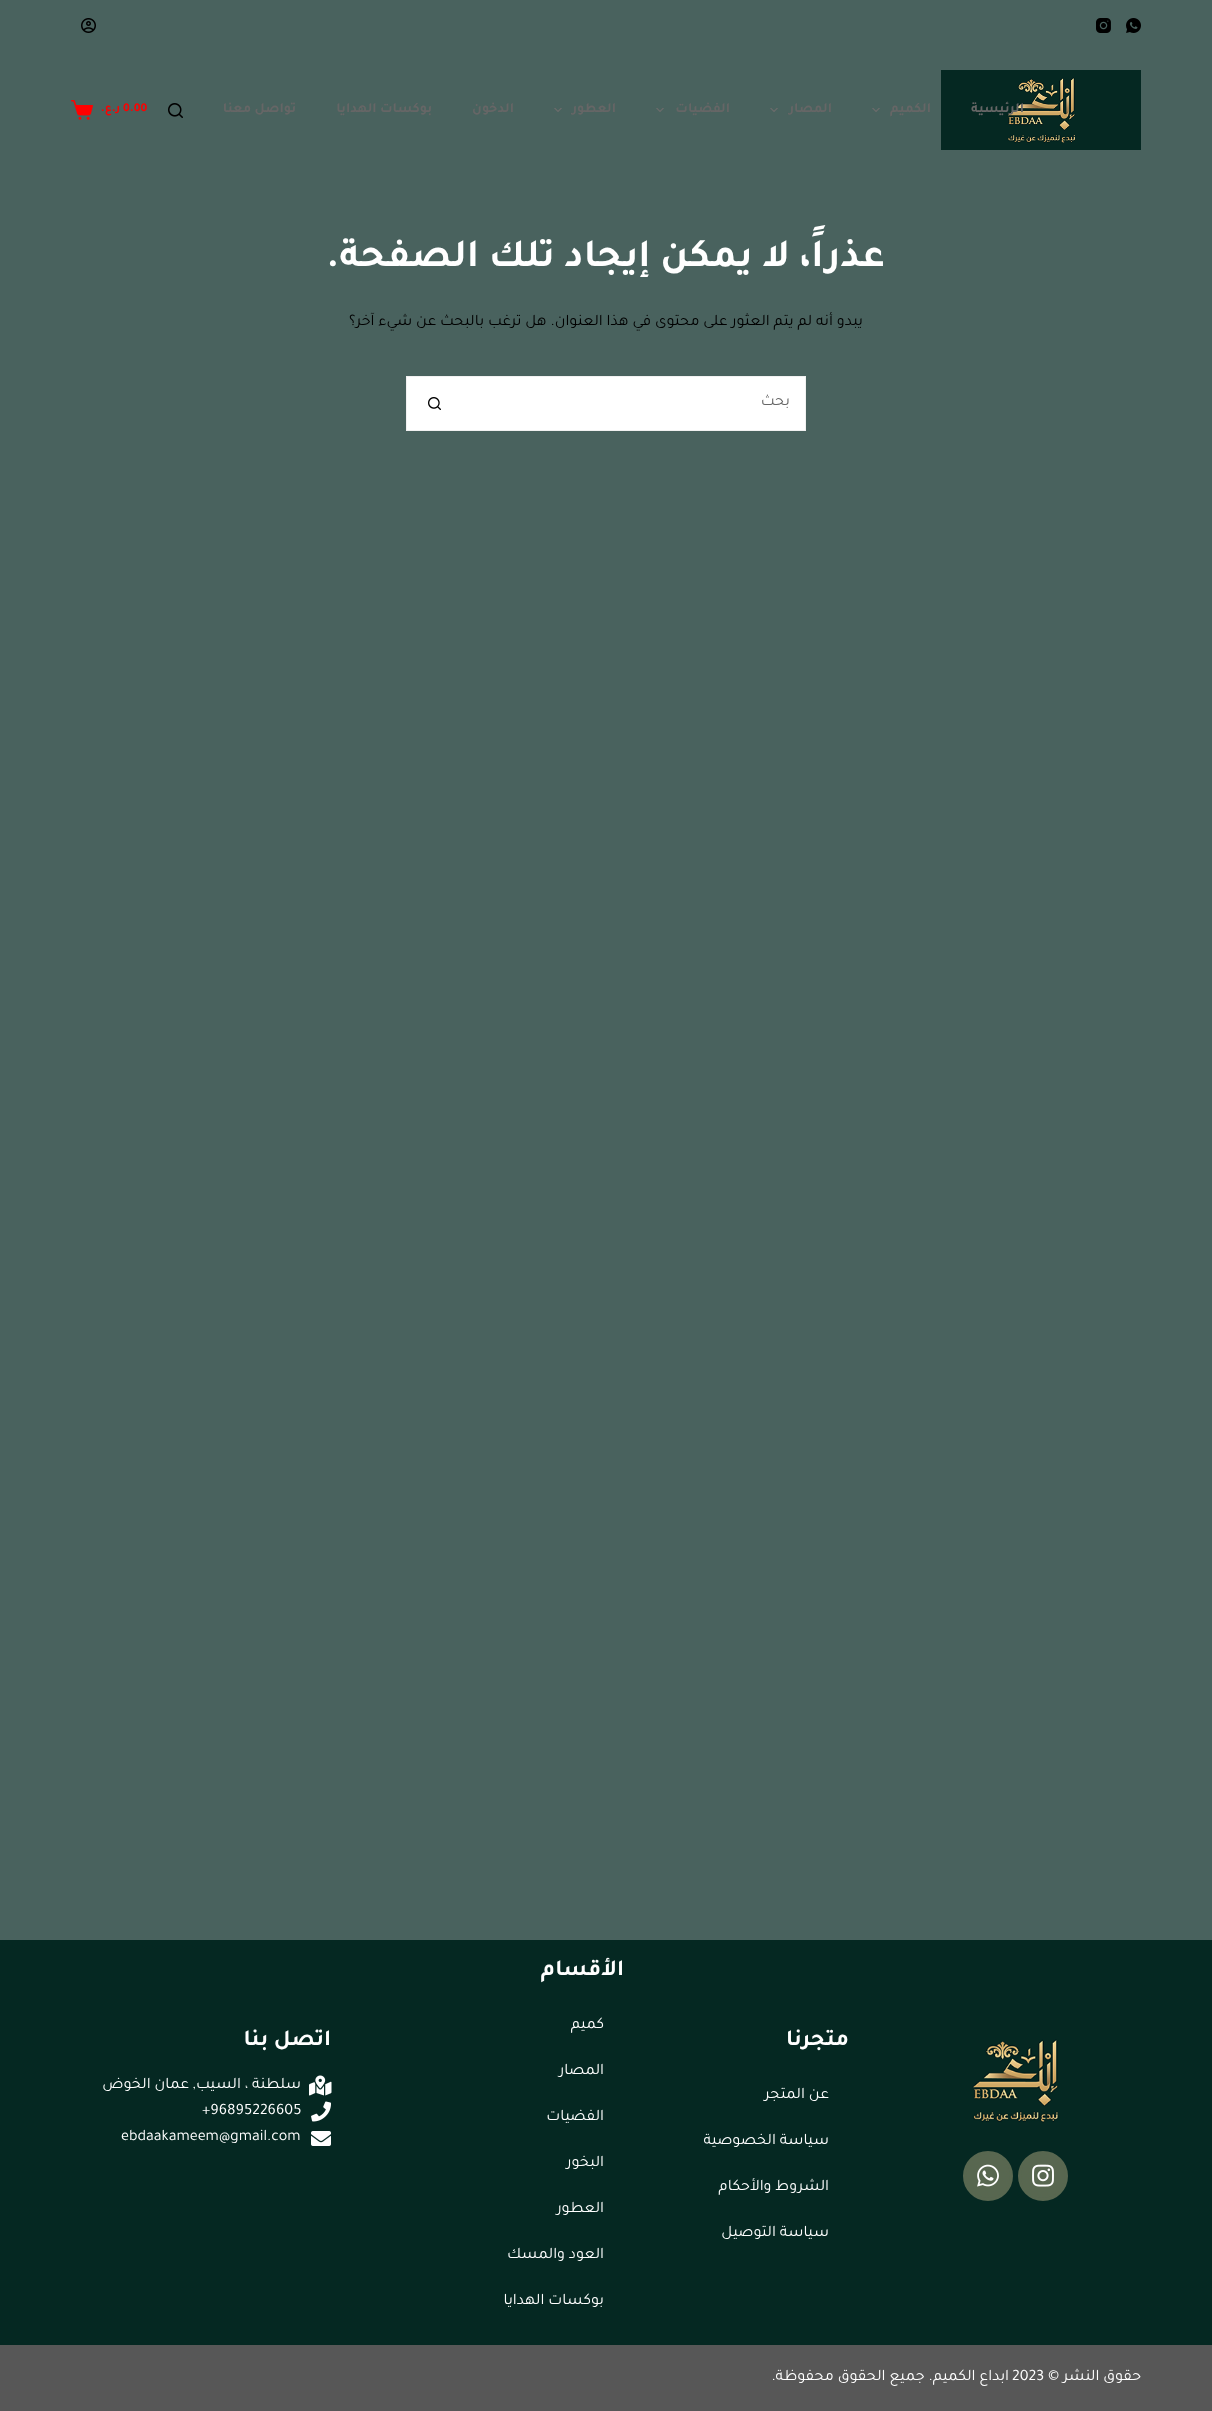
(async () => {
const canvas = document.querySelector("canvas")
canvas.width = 1212
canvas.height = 2411
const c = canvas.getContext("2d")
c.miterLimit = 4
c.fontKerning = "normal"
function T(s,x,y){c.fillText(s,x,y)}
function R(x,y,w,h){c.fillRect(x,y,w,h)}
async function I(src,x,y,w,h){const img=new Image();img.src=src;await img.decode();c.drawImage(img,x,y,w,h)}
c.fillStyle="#49625e"
R(0,0,1212,2411)
await I("1.png",1126,18,15,15)
await I("2.png",1096,18,15,15)
await I("3.png",81,18,15,15)
await I("4.png",941,70,200,80)
c.direction="rtl"
c.font="bold 14px Tajawal"
c.fillStyle="#666"
T("الرئيسية",1024,112)
T("الكميم",931,112)
await I("5.png",872,108,8,4)
T("المصار",832,112)
await I("5.png",770,108,8,4)
T("الفضيات",730,112)
await I("5.png",656,108,8,4)
T("العطور",616,112)
await I("5.png",554,108,8,4)
T("الدخون",514,112)
T("بوكسات الهدايا",432,112)
T("تواصل معنا",296,112)
await I("6.png",168,103,15,15)
c.direction="ltr"
c.font="bold 12px Tajawal"
c.fillStyle="#f00"
T("0.00",123,111)
c.direction="rtl"
T("ر.ع.",120,111)
await I("7.png",71,100,22,20)
c.font="bold 40px Tajawal"
c.fillStyle="#fff"
T("عذراً، لا يمكن إيجاد تلك الصفحة.",885,266)
c.font="16px Tajawal"
c.fillStyle="#000"
T("يبدو أنه لم يتم العثور على محتوى في هذا العنوان. هل ترغب بالبحث عن شيء آخر؟",863,325)
c.fillStyle="#fff"
R(407,377,398,53)
c.fillStyle="#f1f1f1"
R(406,376,400,1)
R(805,376,1,55)
R(406,430,400,1)
c.fillStyle="#666"
T("بحث",790,405)
c.fillStyle="#f1f1f1"
R(406,376,1,55)
await I("8.png",428,397,13,13)
c.fillStyle="#052822"
R(0,1940,1212,405)
await I("9.png",972,2039,87,84)
c.fillStyle="#586750"
c.beginPath()
c.arc(1043,2176,23.5,0,7)
c.fill()
c.strokeStyle="#586750"
c.lineWidth=3
c.stroke()
await I("10.png",1032,2164,22,23)
c.beginPath()
c.arc(988,2176,23.5,0,7)
c.fill()
c.stroke()
await I("11.png",977,2164,22,23)
c.font="bold 23px Tajawal"
c.fillStyle="#fff"
T("متجرنا",849,2045)
c.font="16px Tajawal"
T("عن المتجر",829,2098)
T("سياسة الخصوصية",829,2144)
T("الشروط والأحكام",829,2190)
T("سياسة التوصيل",829,2236)
c.font="bold 23px Tajawal"
T("الأقسام",624,1975)
c.font="16px Tajawal"
T("كميم",604,2028)
T("المصار",604,2074)
T("الفضيات",604,2120)
T("البخور",604,2166)
T("العطور",604,2212)
T("العود والمسك",604,2258)
T("بوكسات الهدايا",604,2304)
c.font="bold 23px Tajawal"
T("اتصل بنا",331,2045)
await I("12.png",309,2075,23,21)
c.font="16px Tajawal"
T("سلطنة ، السيب,",301,2088)
T("عمان الخوض",189,2088)
await I("13.png",311,2101,20,21)
c.direction="ltr"
T("+96895226605",202,2114)
await I("14.png",311,2131,20,15)
T("ebdaakameem@gmail.com",121,2140)
c.fillStyle="#575757"
R(0,2345,1212,66)
c.direction="rtl"
c.fillStyle="#fff"
T("حقوق النشر ©",1141,2380)
c.direction="ltr"
T("2023",1012,2380)
c.direction="rtl"
T("ابداع الكميم. جميع الحقوق محفوظة.",1009,2380)
})()
